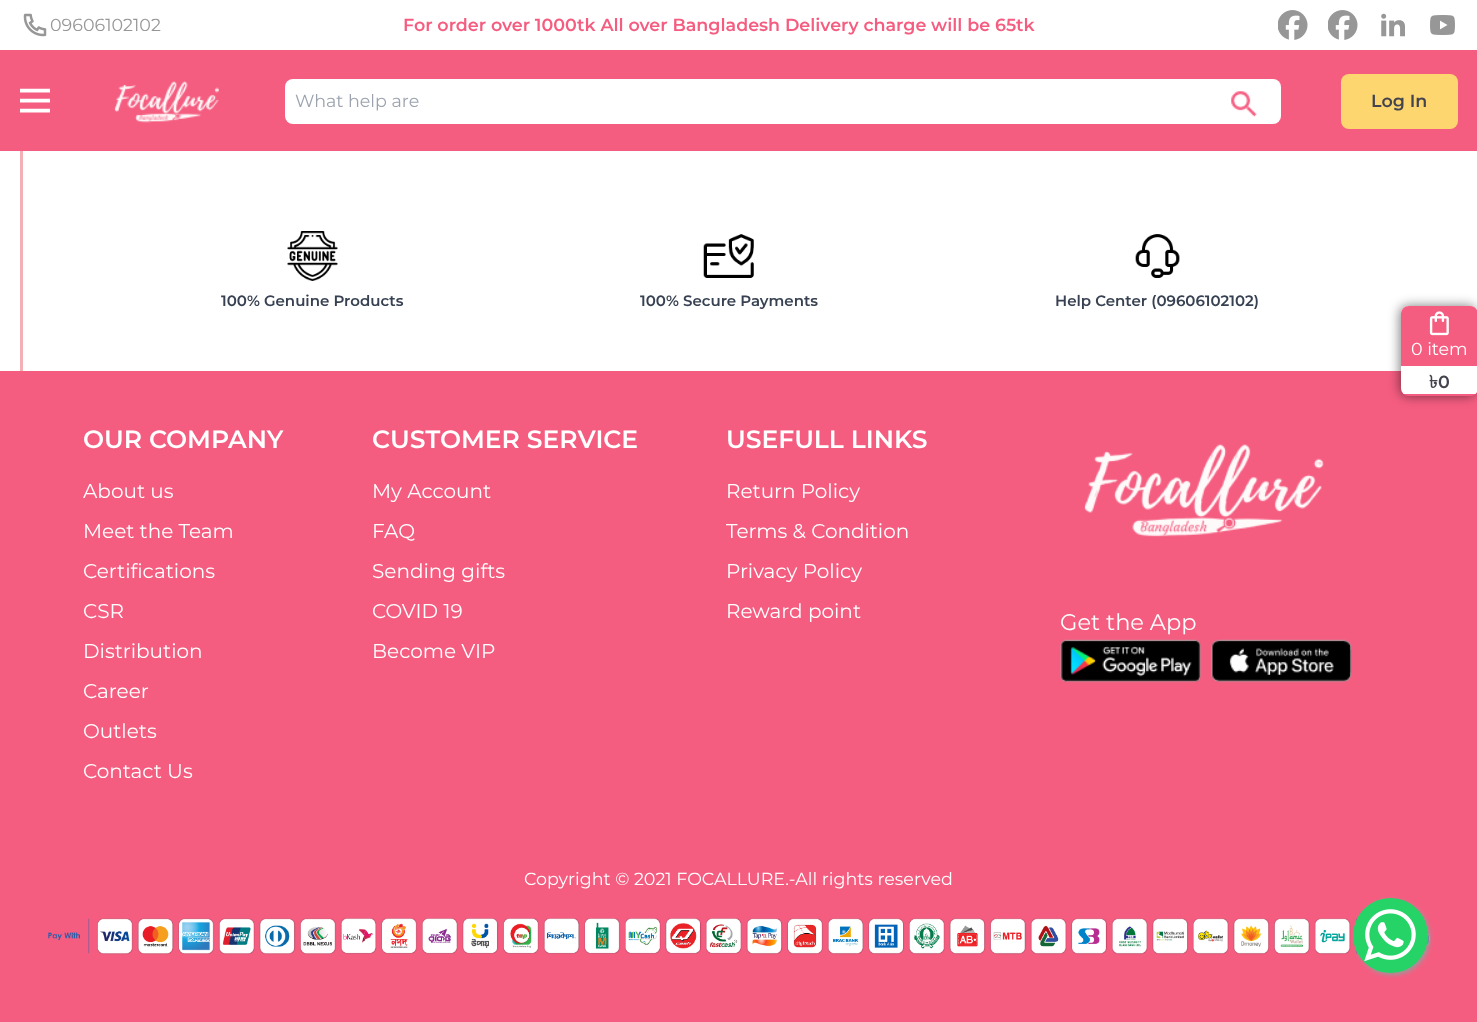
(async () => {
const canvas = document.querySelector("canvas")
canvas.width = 1477
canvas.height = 1022
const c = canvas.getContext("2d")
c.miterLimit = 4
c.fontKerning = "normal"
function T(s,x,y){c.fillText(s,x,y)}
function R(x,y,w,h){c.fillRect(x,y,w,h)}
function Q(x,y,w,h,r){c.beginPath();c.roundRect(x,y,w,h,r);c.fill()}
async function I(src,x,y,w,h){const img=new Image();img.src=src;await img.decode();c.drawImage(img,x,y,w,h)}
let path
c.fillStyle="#fff"
R(0,0,1477,1022)
await I("1.png",23,13,24,24)
c.font="17.5px Montserrat"
c.fillStyle="#979797"
T("09606102102",50,31)
c.font="600 17.5px Montserrat"
c.fillStyle="#f55d80"
T("For order over 1000tk All over Bangladesh Delivery charge will be 65tk",403,31)
await I("2.png",1278,10,30,30)
await I("2.png",1328,10,30,30)
await I("3.png",1381,13,24,24)
await I("4.png",1430,15,25,20)
R(0,50,1477,101)
await I("5.png",20,88,30,25)
await I("6.png",114,81,105,42)
c.fillStyle="#fff"
Q(285,79,996,45,8)
c.font="17.5px Montserrat"
c.fillStyle="#9ca3af"
T("What help are",295,107)
await I("7.png",1231,91,26,26)
c.fillStyle="#fdd670"
Q(1341,74,117,55,8)
c.font="600 17.5px Montserrat"
c.fillStyle="#44444f"
T("Log In",1371,107)
c.fillStyle="#f3b1b5"
R(20,151,3,220)
await I("8.png",287,231,51,50)
c.font="600 15px Montserrat"
c.fillStyle="#374151"
T("100% Genuine Products",221,306)
await I("9.png",703,234,51,44)
T("100% Secure Payments",640,306)
await I("10.png",1135,234,45,44)
T("Help Center (09606102102)",1055,306)
c.fillStyle="#f55d80"
R(0,371,1477,651)
c.save()
path = new Path2D("M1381 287h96v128h-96zm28 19h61c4.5 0 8 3.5 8 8v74c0 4.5-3.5 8-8 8h-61c-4.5 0-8-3.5-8-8v-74c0-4.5 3.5-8 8-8z")
c.clip(path,"evenodd")
c.fillStyle="#00000085"
c.filter="blur(6px)"
c.beginPath()
c.roundRect(1400,306,76,90,8)
c.fill()
c.filter="none"
c.restore()
path = new Path2D("M1409 306h61c4.5 0 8 3.5 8 8v52h-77v-52c0-4.5 3.5-8 8-8z")
c.fill(path)
await I("11.png",1429,311,20,25)
c.font="17.5px Montserrat"
c.fillStyle="#fff"
T("0 item",1411,355)
c.save()
c.beginPath()
c.roundRect(1401,306,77,90,8)
c.clip()
R(1401,369,76,25)
c.restore()
c.font="bold 17.5px Lohit Bengali"
c.fillStyle="#44444f"
T("৳",1429,388)
c.font="600 17.5px Montserrat"
T("0",1438,388)
c.font="600 25px Montserrat"
c.fillStyle="#fff"
T("OUR COMPANY",83,448)
c.font="20px Montserrat"
T("About us",83,498)
T("Meet the Team",83,538)
T("Certifications",83,578)
T("CSR",83,618)
T("Distribution",83,658)
T("Career",83,698)
T("Outlets",83,738)
T("Contact Us",83,778)
c.font="600 25px Montserrat"
T("CUSTOMER SERVICE",372,448)
c.font="20px Montserrat"
T("My Account",372,498)
T("FAQ",372,538)
T("Sending gifts",372,578)
T("COVID 19",372,618)
T("Become VIP",372,658)
c.font="600 25px Montserrat"
T("USEFULL LINKS",726,448)
c.font="20px Montserrat"
T("Return Policy",726,498)
T("Terms & Condition",726,538)
T("Privacy Policy",726,578)
T("Reward point",726,618)
await I("12.png",1084,444,240,93)
c.font="22.5px Montserrat"
T("Get the App",1060,630)
await I("13.png",1060,639,142,44)
await I("14.png",1211,639,141,44)
c.font="17.5px Montserrat"
T("Copyright © 2021 FOCALLURE.-All rights reserved",524,885)
await I("15.png",48,918,1382,37)
c.fillStyle="#999"
c.filter="blur(2px)"
c.beginPath()
c.roundRect(1355,900,75,75,37.5)
c.fill()
c.filter="none"
c.fillStyle="#25d366"
c.beginPath()
c.arc(1390.5,935.5,37.5,0,7)
c.fill()
await I("16.png",1364,909,52,53)
})()
